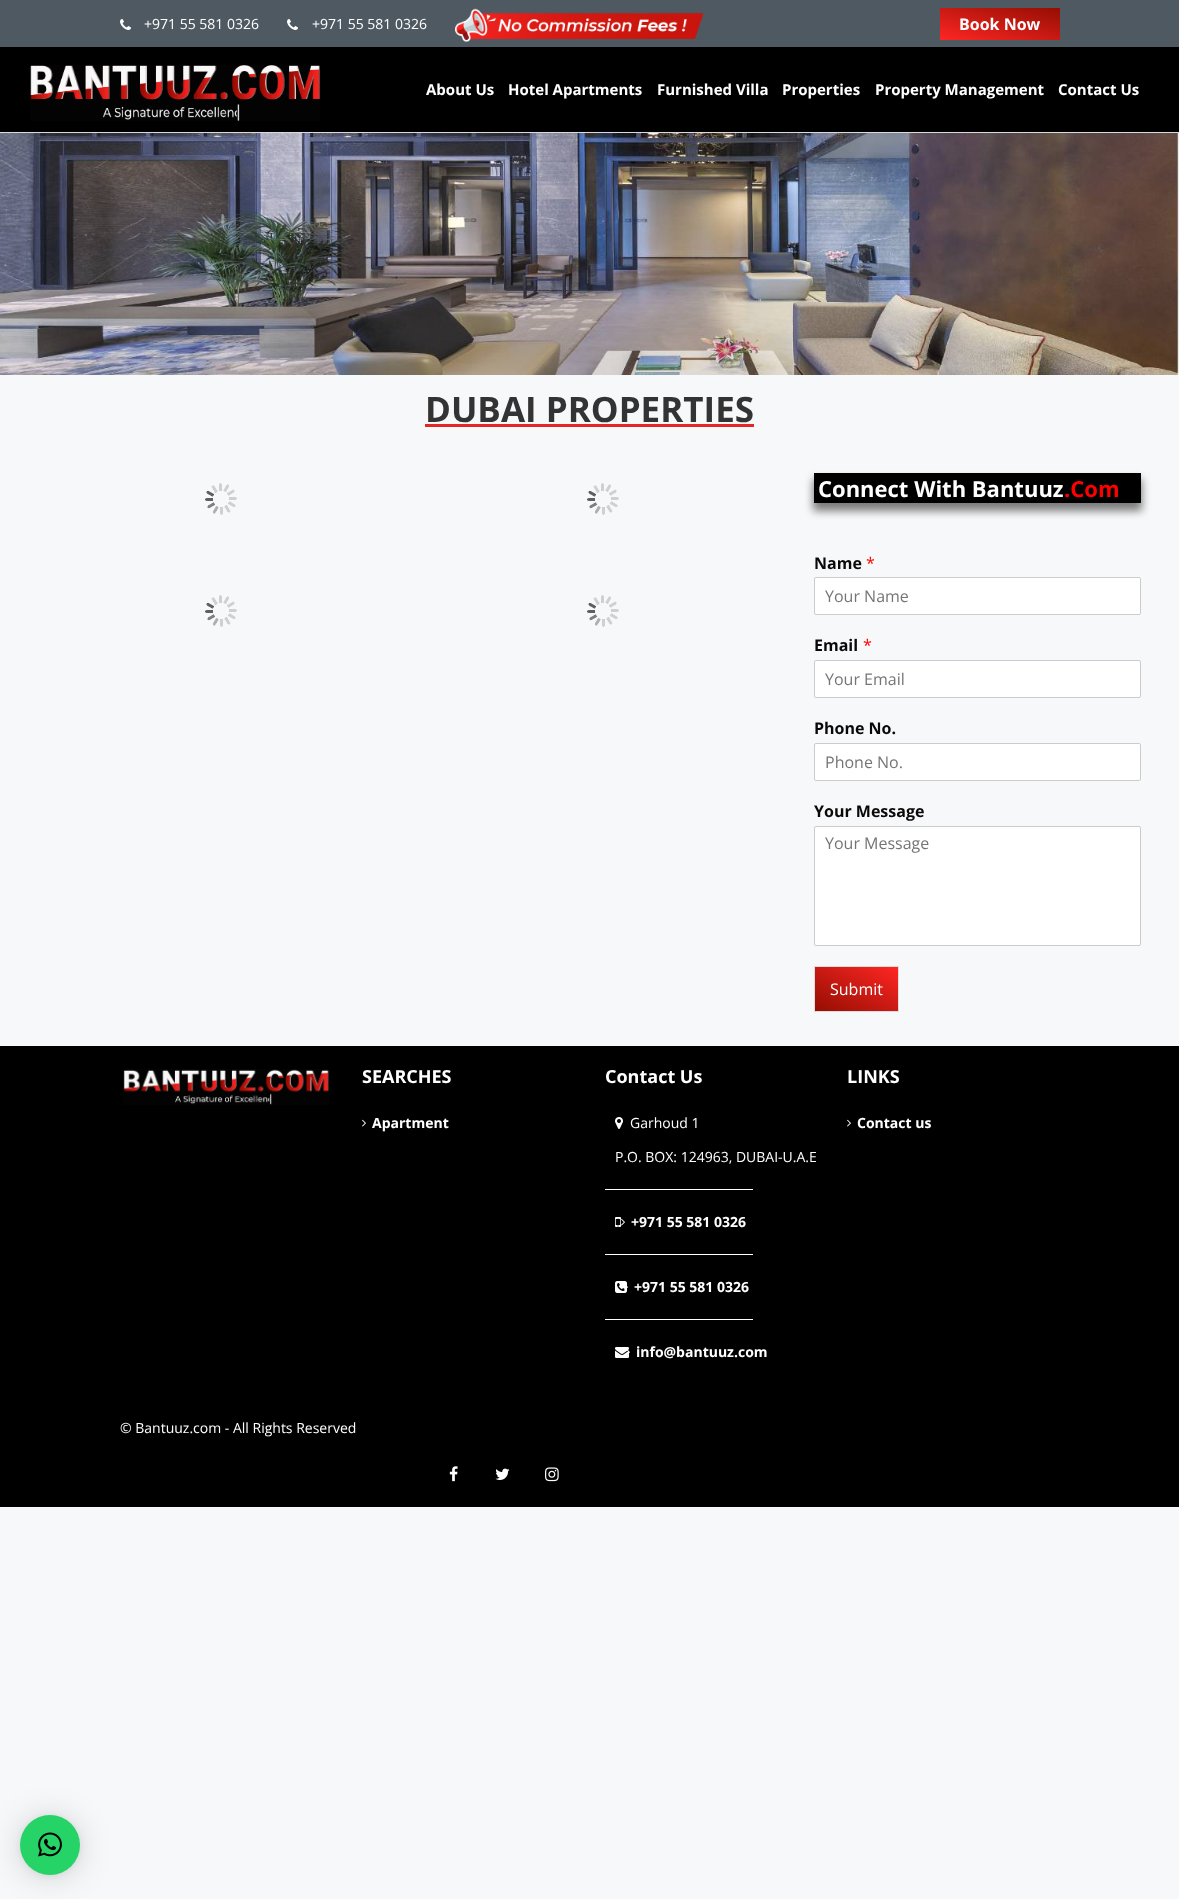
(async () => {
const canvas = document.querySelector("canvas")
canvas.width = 1179
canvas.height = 1899
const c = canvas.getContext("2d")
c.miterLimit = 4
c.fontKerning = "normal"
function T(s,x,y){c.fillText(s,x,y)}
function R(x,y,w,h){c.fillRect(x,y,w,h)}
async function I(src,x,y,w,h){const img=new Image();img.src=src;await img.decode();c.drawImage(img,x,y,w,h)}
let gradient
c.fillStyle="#f7f8f9"
R(0,0,1179,1899)
c.fillStyle="#4f5962"
R(0,0,1179,47)
await I("1.png",120,19,11,11)
c.font="14px Open Sans"
c.fillStyle="#fff"
T("+971 55 581 0326",144,29)
await I("1.png",287,19,11,11)
T("+971 55 581 0326",312,29)
await I("2.png",455,8,249,34)
gradient = c.createLinearGradient(992,54,1008,-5.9)
gradient.addColorStop(0,"#ff2624")
gradient.addColorStop(.25,"#e4201b")
gradient.addColorStop(.5,"#c91a13")
gradient.addColorStop(.75,"#af140a")
gradient.addColorStop(1,"#960d03")
c.fillStyle = gradient
R(940,8,120,32)
c.font="bold 16px Open Sans"
c.fillStyle="#fff"
T("Book Now",959,30)
c.fillStyle="#000"
R(0,47,1179,85)
c.fillStyle="#d8dce1"
R(0,132,1179,1)
await I("3.png",30,65,290,56)
c.font="bold 15px Open Sans"
c.fillStyle="#fff"
T("About Us",426,95)
T("Hotel Apartments",508,95)
T("Furnished Villa",657,95)
T("Properties",782,95)
T("Property Management",875,95)
T("Contact Us",1058,95)
await I("4.png",0,133,1179,242)
c.font="bold 35px Open Sans"
c.fillStyle="#333"
T("DUBAI PROPERTIES",425,422)
c.fillStyle="#e52626"
R(425,424,329,3)
await I("5.png",205,483,32,32)
await I("5.png",587,483,32,32)
await I("5.png",205,595,32,32)
await I("5.png",587,595,32,32)
c.fillStyle="#00000080"
c.filter="blur(4px)"
c.beginPath()
c.rect(813,479,329,32)
c.fill()
c.filter="none"
c.fillStyle="#000"
R(814,473,327,30)
c.font="bold 22px Open Sans"
c.fillStyle="#fff"
T("Connect With Bantuuz",818,497)
c.fillStyle="#f00"
T(".Com",1064,497)
c.font="bold 16px Open Sans"
c.fillStyle="#0a0808"
T("Name",814,569)
c.font="16px Open Sans"
c.fillStyle="#f00"
T("*",866,569)
c.fillStyle="#fff"
c.beginPath()
c.roundRect(814.5,577.5,326,37,1.5)
c.fill()
c.strokeStyle="#ccc"
c.stroke()
c.fillStyle="#757575"
T("Your Name",825,602)
c.font="bold 16px Open Sans"
c.fillStyle="#0a0808"
T("Email",814,651)
c.font="16px Open Sans"
c.fillStyle="#f00"
T("*",863,651)
c.fillStyle="#fff"
c.beginPath()
c.roundRect(814.5,660.5,326,37,1.5)
c.fill()
c.stroke()
c.fillStyle="#757575"
T("Your Email",825,685)
c.font="bold 16px Open Sans"
c.fillStyle="#0a0808"
T("Phone No.",814,734)
c.fillStyle="#fff"
c.beginPath()
c.roundRect(814.5,743.5,326,37,1.5)
c.fill()
c.stroke()
c.font="16px Open Sans"
c.fillStyle="#757575"
T("Phone No.",825,768)
c.font="bold 16px Open Sans"
c.fillStyle="#0a0808"
T("Your Message",814,817)
c.fillStyle="#fff"
c.beginPath()
c.roundRect(814.5,826.5,326,119,1.5)
c.fill()
c.stroke()
c.font="16px Open Sans"
c.fillStyle="#757575"
T("Your Message",825,849)
gradient = c.createLinearGradient(838,1023,875,955)
gradient.addColorStop(0,"#960d03")
gradient.addColorStop(.25,"#af140a")
gradient.addColorStop(.5,"#c91a13")
gradient.addColorStop(.75,"#e4201b")
gradient.addColorStop(1,"#ff2624")
c.fillStyle = gradient
R(815,967,83,44)
c.strokeStyle="#ddd"
c.strokeRect(814.5,966.5,84,45)
c.fillStyle="#fff"
T("Submit",830,995)
c.fillStyle="#000"
R(0,1046,1179,461)
await I("6.png",123,1069,207,36)
c.font="bold 18px Open Sans"
c.fillStyle="#fff"
T("SEARCHES",362,1083)
await I("7.png",362,1119,4,8)
c.font="bold 14px Open Sans"
T("Apartment",372,1128)
c.font="bold 18px Open Sans"
T("Contact Us",605,1083)
await I("8.png",615,1117,8,12)
c.font="14px Open Sans"
T("Garhoud 1",630,1128)
T("P.O. BOX: 124963, DUBAI-U.A.E",615,1162)
R(605,1189,148,1)
await I("9.png",615,1217,6,10)
await I("7.png",621,1218,4,8)
c.font="bold 14px Open Sans"
T("+971 55 581 0326",631,1227)
R(605,1254,148,1)
await I("10.png",615,1281,12,12)
await I("11.png",624,1286,4,5)
T("+971 55 581 0326",634,1292)
R(605,1319,148,1)
await I("12.png",615,1347,14,11)
await I("13.png",627,1350,3,4)
T("info@bantuuz.com",636,1357)
c.font="bold 18px Open Sans"
T("LINKS",847,1083)
await I("7.png",847,1119,4,8)
c.font="bold 14px Open Sans"
T("Contact us",857,1128)
c.font="14px Open Sans"
T("© Bantuuz.com - All Rights Reserved",120,1433)
await I("14.png",449,1466,9,16)
await I("15.png",495,1468,15,12)
await I("16.png",545,1467,14,15)
c.fillStyle="#00000029"
c.filter="blur(16px)"
c.beginPath()
c.roundRect(20,1817,60,60,30)
c.fill()
c.filter="none"
c.fillStyle="#0000000f"
c.filter="blur(3px)"
c.beginPath()
c.roundRect(20,1816,60,60,30)
c.fill()
c.filter="none"
c.fillStyle="#25d366"
c.beginPath()
c.arc(50,1845,30,0,7)
c.fill()
await I("17.png",38,1832,24,25)
})()
